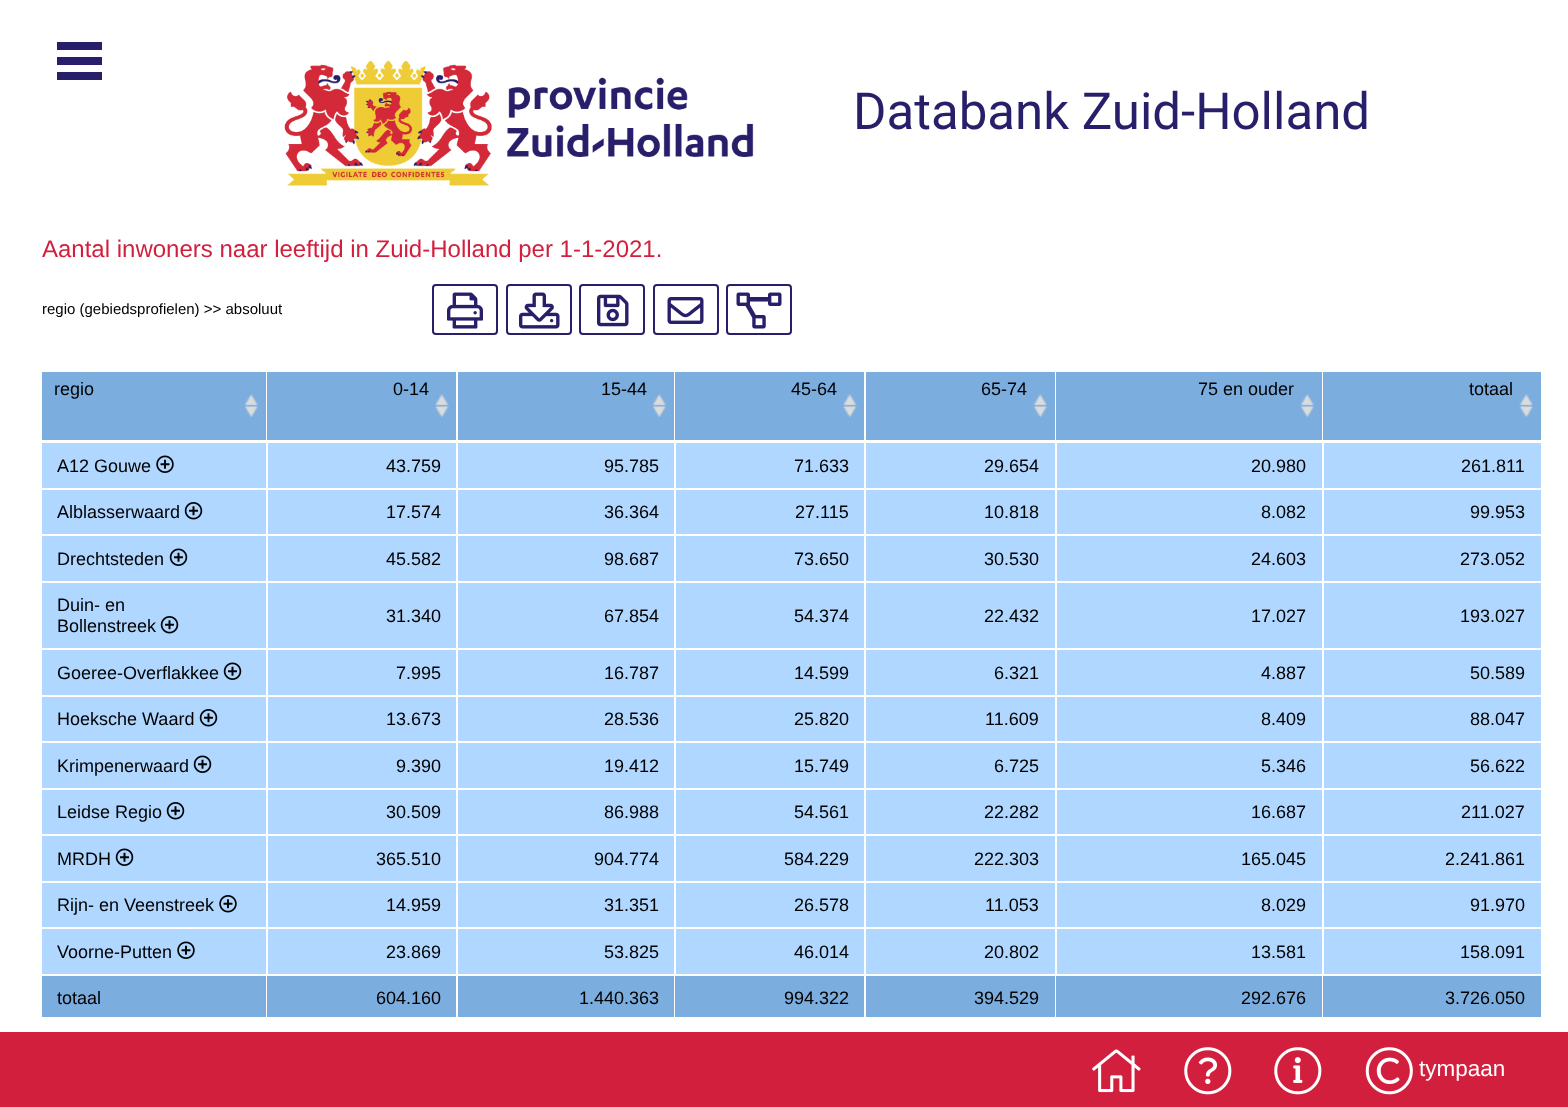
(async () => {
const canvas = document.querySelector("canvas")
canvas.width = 1568
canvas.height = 1107
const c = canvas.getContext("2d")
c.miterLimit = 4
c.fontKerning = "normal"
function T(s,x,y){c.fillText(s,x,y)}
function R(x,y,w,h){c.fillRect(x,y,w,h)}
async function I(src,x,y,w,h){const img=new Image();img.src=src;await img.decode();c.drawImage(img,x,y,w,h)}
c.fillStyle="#fff"
R(0,0,1568,1107)
c.fillStyle="#281f6b"
R(57,42,45,8)
R(57,57,45,8)
R(57,72,45,8)
await I("1.png",284,61,470,125)
c.font="51px Roboto"
T("Databank Zuid-Holland",853,129)
c.font="24px Liberation Sans"
c.fillStyle="#d11f3d"
T("Aantal inwoners naar leeftijd in Zuid-Holland per 1-1-2021.",42,257)
c.font="15px Liberation Sans"
c.fillStyle="#000"
T("regio (gebiedsprofielen) >> absoluut",42,314)
c.beginPath()
c.roundRect(433,285,64,49,3)
c.strokeStyle="#281f6b"
c.lineWidth=2
c.stroke()
await I("2.png",447,292,36,37)
c.beginPath()
c.roundRect(507,285,64,49,3)
c.stroke()
await I("3.png",519,292,41,37)
c.beginPath()
c.roundRect(580,285,64,49,3)
c.stroke()
await I("4.png",597,294,32,33)
c.beginPath()
c.roundRect(654,285,64,49,3)
c.stroke()
await I("5.png",667,297,37,27)
c.beginPath()
c.roundRect(727,285,64,49,3)
c.stroke()
await I("6.png",736,292,46,37)
c.fillStyle="#7badde"
R(42,372,224,68)
await I("7.png",244,394,15,24)
c.font="18px Liberation Sans"
c.fillStyle="#000"
T("regio",54,395)
c.fillStyle="#7badde"
R(267,372,189,68)
await I("8.png",434,394,15,24)
c.fillStyle="#000"
T("0-14",393,395)
c.fillStyle="#7badde"
R(458,372,216,68)
await I("7.png",652,394,15,24)
c.fillStyle="#000"
T("15-44",601,395)
c.fillStyle="#7badde"
R(675,372,189,68)
await I("9.png",842,394,15,24)
c.fillStyle="#000"
T("45-64",791,395)
c.fillStyle="#7badde"
R(866,372,189,68)
await I("10.png",1033,394,15,24)
c.fillStyle="#000"
T("65-74",981,395)
c.fillStyle="#7badde"
R(1056,372,266,68)
await I("10.png",1300,394,15,24)
c.fillStyle="#000"
T("75 en ouder",1198,395)
c.fillStyle="#7badde"
R(1323,372,218,68)
await I("11.png",1519,394,15,24)
c.fillStyle="#000"
T("totaal",1469,395)
c.fillStyle="#afd7ff"
R(42,443,1499,45)
c.fillStyle="#fff"
R(266,441,2,47)
c.fillStyle="#000"
T("A12 Gouwe",57,472)
await I("12.png",156,455,18,18)
c.fillStyle="#fff"
R(456,441,2,47)
c.fillStyle="#000"
T("43.759",386,472)
c.fillStyle="#fff"
R(674,441,2,47)
c.fillStyle="#000"
T("95.785",604,472)
c.fillStyle="#fff"
R(864,441,2,47)
c.fillStyle="#000"
T("71.633",794,472)
c.fillStyle="#fff"
R(1055,441,2,47)
c.fillStyle="#000"
T("29.654",984,472)
c.fillStyle="#fff"
R(1322,441,2,47)
c.fillStyle="#000"
T("20.980",1251,472)
T("261.811",1461,472)
c.fillStyle="#afd7ff"
R(42,490,1499,44)
c.fillStyle="#fff"
R(266,488,2,46)
c.fillStyle="#000"
T("Alblasserwaard",57,518)
await I("13.png",184,502,19,18)
c.fillStyle="#fff"
R(456,488,2,46)
c.fillStyle="#000"
T("17.574",386,518)
c.fillStyle="#fff"
R(674,488,2,46)
c.fillStyle="#000"
T("36.364",604,518)
c.fillStyle="#fff"
R(864,488,2,46)
c.fillStyle="#000"
T("27.115",795,518)
c.fillStyle="#fff"
R(1055,488,2,46)
c.fillStyle="#000"
T("10.818",984,518)
c.fillStyle="#fff"
R(1322,488,2,46)
c.fillStyle="#000"
T("8.082",1261,518)
T("99.953",1470,518)
c.fillStyle="#afd7ff"
R(42,536,1499,45)
c.fillStyle="#fff"
R(266,534,2,47)
c.fillStyle="#000"
T("Drechtsteden",57,565)
await I("14.png",169,548,19,18)
c.fillStyle="#fff"
R(456,534,2,47)
c.fillStyle="#000"
T("45.582",386,565)
c.fillStyle="#fff"
R(674,534,2,47)
c.fillStyle="#000"
T("98.687",604,565)
c.fillStyle="#fff"
R(864,534,2,47)
c.fillStyle="#000"
T("73.650",794,565)
c.fillStyle="#fff"
R(1055,534,2,47)
c.fillStyle="#000"
T("30.530",984,565)
c.fillStyle="#fff"
R(1322,534,2,47)
c.fillStyle="#000"
T("24.603",1251,565)
T("273.052",1460,565)
c.fillStyle="#afd7ff"
R(42,583,1499,65)
c.fillStyle="#fff"
R(266,581,2,67)
c.fillStyle="#000"
T("Duin- en",57,611)
T("Bollenstreek",57,632)
await I("13.png",160,616,19,18)
c.fillStyle="#fff"
R(456,581,2,67)
c.fillStyle="#000"
T("31.340",386,622)
c.fillStyle="#fff"
R(674,581,2,67)
c.fillStyle="#000"
T("67.854",604,622)
c.fillStyle="#fff"
R(864,581,2,67)
c.fillStyle="#000"
T("54.374",794,622)
c.fillStyle="#fff"
R(1055,581,2,67)
c.fillStyle="#000"
T("22.432",984,622)
c.fillStyle="#fff"
R(1322,581,2,67)
c.fillStyle="#000"
T("17.027",1251,622)
T("193.027",1460,622)
c.fillStyle="#afd7ff"
R(42,650,1499,45)
c.fillStyle="#fff"
R(266,648,2,47)
c.fillStyle="#000"
T("Goeree-Overflakkee",57,679)
await I("14.png",223,662,19,18)
c.fillStyle="#fff"
R(456,648,2,47)
c.fillStyle="#000"
T("7.995",396,679)
c.fillStyle="#fff"
R(674,648,2,47)
c.fillStyle="#000"
T("16.787",604,679)
c.fillStyle="#fff"
R(864,648,2,47)
c.fillStyle="#000"
T("14.599",794,679)
c.fillStyle="#fff"
R(1055,648,2,47)
c.fillStyle="#000"
T("6.321",994,679)
c.fillStyle="#fff"
R(1322,648,2,47)
c.fillStyle="#000"
T("4.887",1261,679)
T("50.589",1470,679)
c.fillStyle="#afd7ff"
R(42,697,1499,44)
c.fillStyle="#fff"
R(266,695,2,46)
c.fillStyle="#000"
T("Hoeksche Waard",57,725)
await I("13.png",199,709,19,18)
c.fillStyle="#fff"
R(456,695,2,46)
c.fillStyle="#000"
T("13.673",386,725)
c.fillStyle="#fff"
R(674,695,2,46)
c.fillStyle="#000"
T("28.536",604,725)
c.fillStyle="#fff"
R(864,695,2,46)
c.fillStyle="#000"
T("25.820",794,725)
c.fillStyle="#fff"
R(1055,695,2,46)
c.fillStyle="#000"
T("11.609",985,725)
c.fillStyle="#fff"
R(1322,695,2,46)
c.fillStyle="#000"
T("8.409",1261,725)
T("88.047",1470,725)
c.fillStyle="#afd7ff"
R(42,743,1499,45)
c.fillStyle="#fff"
R(266,741,2,47)
c.fillStyle="#000"
T("Krimpenerwaard",57,772)
await I("14.png",193,755,19,18)
c.fillStyle="#fff"
R(456,741,2,47)
c.fillStyle="#000"
T("9.390",396,772)
c.fillStyle="#fff"
R(674,741,2,47)
c.fillStyle="#000"
T("19.412",604,772)
c.fillStyle="#fff"
R(864,741,2,47)
c.fillStyle="#000"
T("15.749",794,772)
c.fillStyle="#fff"
R(1055,741,2,47)
c.fillStyle="#000"
T("6.725",994,772)
c.fillStyle="#fff"
R(1322,741,2,47)
c.fillStyle="#000"
T("5.346",1261,772)
T("56.622",1470,772)
c.fillStyle="#afd7ff"
R(42,790,1499,44)
c.fillStyle="#fff"
R(266,788,2,46)
c.fillStyle="#000"
T("Leidse Regio",57,818)
await I("13.png",166,802,19,18)
c.fillStyle="#fff"
R(456,788,2,46)
c.fillStyle="#000"
T("30.509",386,818)
c.fillStyle="#fff"
R(674,788,2,46)
c.fillStyle="#000"
T("86.988",604,818)
c.fillStyle="#fff"
R(864,788,2,46)
c.fillStyle="#000"
T("54.561",794,818)
c.fillStyle="#fff"
R(1055,788,2,46)
c.fillStyle="#000"
T("22.282",984,818)
c.fillStyle="#fff"
R(1322,788,2,46)
c.fillStyle="#000"
T("16.687",1251,818)
T("211.027",1461,818)
c.fillStyle="#afd7ff"
R(42,836,1499,45)
c.fillStyle="#fff"
R(266,834,2,47)
c.fillStyle="#000"
T("MRDH",57,865)
await I("14.png",115,848,19,18)
c.fillStyle="#fff"
R(456,834,2,47)
c.fillStyle="#000"
T("365.510",376,865)
c.fillStyle="#fff"
R(674,834,2,47)
c.fillStyle="#000"
T("904.774",594,865)
c.fillStyle="#fff"
R(864,834,2,47)
c.fillStyle="#000"
T("584.229",784,865)
c.fillStyle="#fff"
R(1055,834,2,47)
c.fillStyle="#000"
T("222.303",974,865)
c.fillStyle="#fff"
R(1322,834,2,47)
c.fillStyle="#000"
T("165.045",1241,865)
T("2.241.861",1445,865)
c.fillStyle="#afd7ff"
R(42,883,1499,44)
c.fillStyle="#fff"
R(266,881,2,46)
c.fillStyle="#000"
T("Rijn- en Veenstreek",57,911)
await I("15.png",219,895,18,18)
c.fillStyle="#fff"
R(456,881,2,46)
c.fillStyle="#000"
T("14.959",386,911)
c.fillStyle="#fff"
R(674,881,2,46)
c.fillStyle="#000"
T("31.351",604,911)
c.fillStyle="#fff"
R(864,881,2,46)
c.fillStyle="#000"
T("26.578",794,911)
c.fillStyle="#fff"
R(1055,881,2,46)
c.fillStyle="#000"
T("11.053",985,911)
c.fillStyle="#fff"
R(1322,881,2,46)
c.fillStyle="#000"
T("8.029",1261,911)
T("91.970",1470,911)
c.fillStyle="#afd7ff"
R(42,929,1499,45)
c.fillStyle="#fff"
R(266,927,2,47)
c.fillStyle="#000"
T("Voorne-Putten",57,958)
await I("12.png",177,941,18,18)
c.fillStyle="#fff"
R(456,927,2,47)
c.fillStyle="#000"
T("23.869",386,958)
c.fillStyle="#fff"
R(674,927,2,47)
c.fillStyle="#000"
T("53.825",604,958)
c.fillStyle="#fff"
R(864,927,2,47)
c.fillStyle="#000"
T("46.014",794,958)
c.fillStyle="#fff"
R(1055,927,2,47)
c.fillStyle="#000"
T("20.802",984,958)
c.fillStyle="#fff"
R(1322,927,2,47)
c.fillStyle="#000"
T("13.581",1251,958)
T("158.091",1460,958)
c.fillStyle="#7badde"
R(42,976,224,41)
c.fillStyle="#000"
T("totaal",57,1004)
c.fillStyle="#7badde"
R(267,976,189,41)
c.fillStyle="#000"
T("604.160",376,1004)
c.fillStyle="#7badde"
R(458,976,216,41)
c.fillStyle="#000"
T("1.440.363",579,1004)
c.fillStyle="#7badde"
R(675,976,189,41)
c.fillStyle="#000"
T("994.322",784,1004)
c.fillStyle="#7badde"
R(866,976,189,41)
c.fillStyle="#000"
T("394.529",974,1004)
c.fillStyle="#7badde"
R(1056,976,266,41)
c.fillStyle="#000"
T("292.676",1241,1004)
c.fillStyle="#7badde"
R(1323,976,218,41)
c.fillStyle="#000"
T("3.726.050",1445,1004)
c.fillStyle="#d11f3d"
R(0,1032,1568,75)
await I("16.png",1092,1049,49,44)
await I("17.png",1184,1047,48,48)
await I("18.png",1274,1047,48,48)
await I("19.png",1365,1047,48,48)
c.font="22.5px Liberation Sans"
c.fillStyle="#fff"
T("tympaan",1419,1076)
})()
